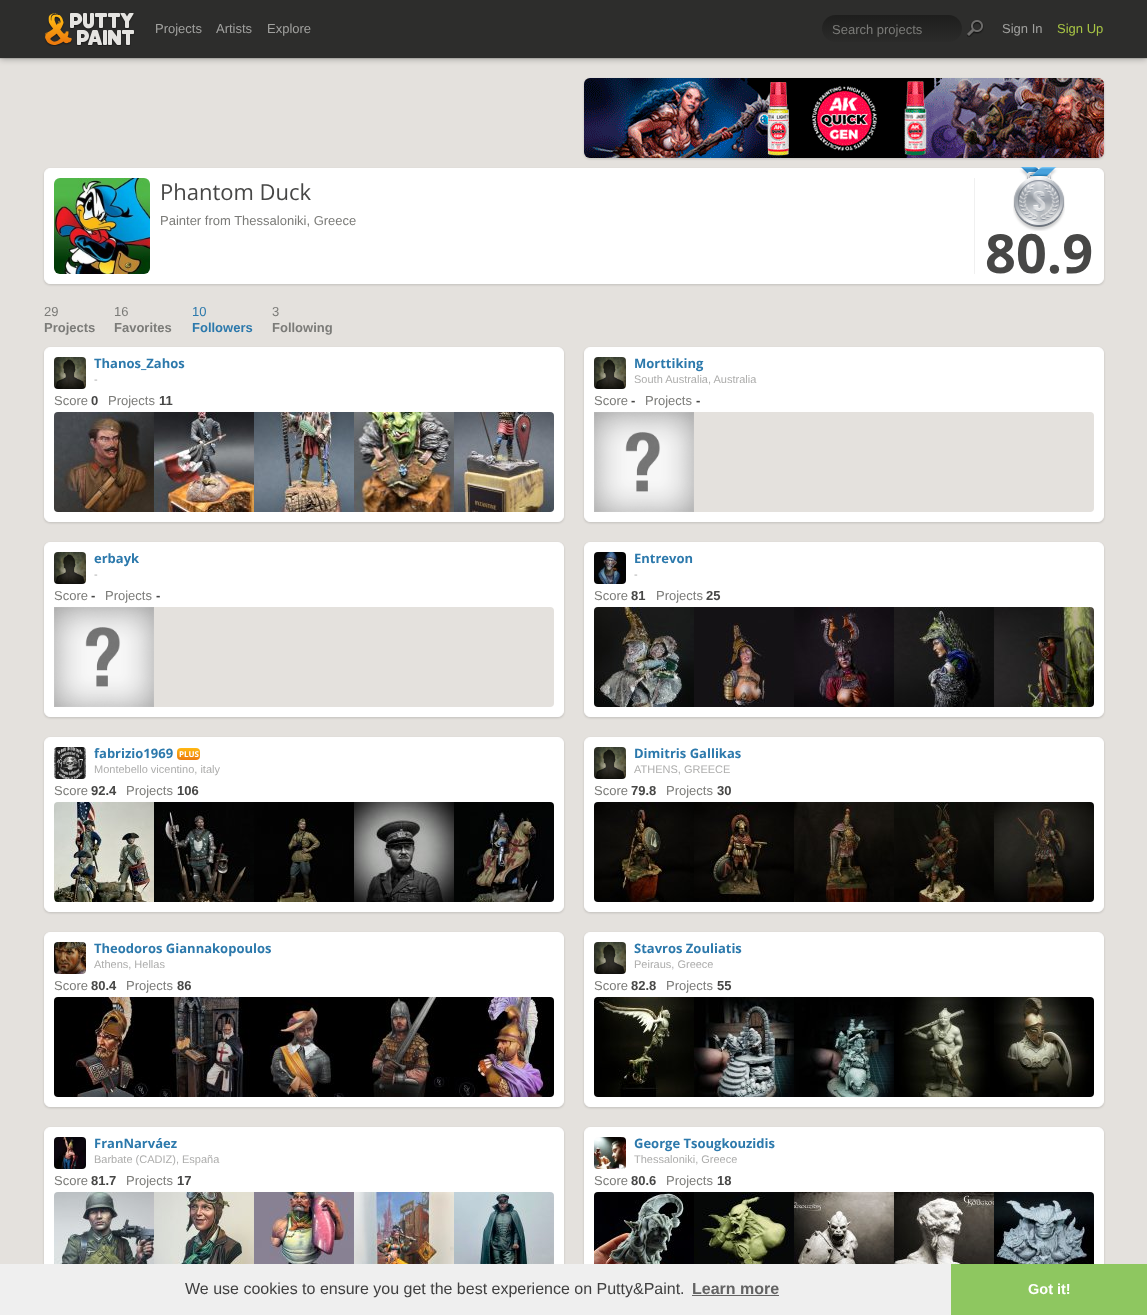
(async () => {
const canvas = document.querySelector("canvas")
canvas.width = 1147
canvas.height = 1315
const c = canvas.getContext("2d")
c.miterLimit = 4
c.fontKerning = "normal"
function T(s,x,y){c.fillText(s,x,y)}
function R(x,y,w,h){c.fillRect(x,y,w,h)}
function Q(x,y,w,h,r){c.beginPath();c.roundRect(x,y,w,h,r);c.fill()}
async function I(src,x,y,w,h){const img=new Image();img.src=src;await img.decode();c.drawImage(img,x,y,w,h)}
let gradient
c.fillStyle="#e4e1dd"
R(0,0,1147,1315)
c.fillStyle="#0000001a"
c.filter="blur(0.5px)"
c.beginPath()
c.rect(0,1,1147,58)
c.fill()
c.filter="none"
c.fillStyle="#0000004d"
c.filter="blur(3px)"
c.beginPath()
c.rect(0,1,1147,58)
c.fill()
c.filter="none"
c.fillStyle="#2d2d2c"
R(0,0,1147,58)
await I("1.png",45,13,90,33)
c.font="13px Liberation Sans"
c.fillStyle="#a1a19f"
T("Projects",155,33)
T("Artists",216,33)
T("Explore",267,33)
gradient = c.createLinearGradient(892,15,892,42)
gradient.addColorStop(0,"#1e1e1d")
gradient.addColorStop(1,"#2b2b2a")
c.fillStyle = gradient
Q(822,15,140,27,13.5)
c.fillStyle="#7b7b78"
T("Search projects",832,34)
await I("2.png",967,20,17,17)
c.fillStyle="#a1a19f"
T("Sign In",1002,33)
c.fillStyle="#a7c444"
T("Sign Up",1057,33)
c.fillStyle="#00000026"
c.filter="blur(1px)"
c.beginPath()
c.roundRect(584,79,520,80,6)
c.fill()
c.filter="none"
await I("3.png",584,78,520,80)
c.filter="blur(1px)"
c.beginPath()
c.roundRect(44,169,1060,116,6)
c.fill()
c.filter="none"
c.fillStyle="#fff"
c.beginPath()
c.roundRect(44.5,168.5,1059,115,5.5)
c.fill()
c.strokeStyle="#fff"
c.stroke()
await I("4.png",54,178,96,96)
c.font="22px Open Sans"
c.fillStyle="#474746"
T("Phantom Duck",160,200)
c.font="13px Liberation Sans"
c.fillStyle="#7b7b78"
T("Painter from Thessaloniki, Greece",160,225)
c.fillStyle="#f0f0f0"
R(974,178,1,96)
await I("5.png",1013,167,52,64)
c.font="bold 54px Open Sans"
c.fillStyle="#474746"
T("80.9",985,273)
c.font="13px Liberation Sans"
c.fillStyle="#7b7b78"
T("29",44,316)
c.font="bold 13px Liberation Sans"
T("Projects",44,332)
c.font="13px Liberation Sans"
T("16",114,316)
c.font="bold 13px Liberation Sans"
T("Favorites",114,332)
c.font="13px Liberation Sans"
c.fillStyle="#2c79ac"
T("10",192,316)
c.font="bold 13px Liberation Sans"
T("Followers",192,332)
c.font="13px Liberation Sans"
c.fillStyle="#7b7b78"
T("3",272,316)
c.font="bold 13px Liberation Sans"
T("Following",272,332)
c.fillStyle="#00000026"
c.filter="blur(1px)"
c.beginPath()
c.roundRect(44,348,520,175,6)
c.fill()
c.filter="none"
c.fillStyle="#fff"
c.beginPath()
c.roundRect(44.5,347.5,519,174,5.5)
c.fill()
c.stroke()
await I("6.png",54,357,32,32)
c.font="bold 13px Open Sans"
c.fillStyle="#2c79ac"
T("Thanos_Zahos",94,368)
c.font="11px Liberation Sans"
c.fillStyle="#adadac"
T("-",94,383)
c.font="13px Liberation Sans"
c.fillStyle="#7b7b78"
T("Score",54,405)
c.font="bold 13px Liberation Sans"
c.fillStyle="#474746"
T("0",91,405)
c.font="13px Liberation Sans"
c.fillStyle="#7b7b78"
T("Projects",108,405)
c.font="bold 13px Liberation Sans"
c.fillStyle="#474746"
T("11",159,405)
await I("7.png",54,412,100,100)
await I("8.png",154,412,100,100)
await I("9.png",254,412,100,100)
await I("10.png",354,412,100,100)
await I("11.png",454,412,100,100)
c.fillStyle="#00000026"
c.filter="blur(1px)"
c.beginPath()
c.roundRect(584,348,520,175,6)
c.fill()
c.filter="none"
c.fillStyle="#fff"
c.beginPath()
c.roundRect(584.5,347.5,519,174,5.5)
c.fill()
c.stroke()
await I("6.png",594,357,32,32)
c.font="bold 13px Open Sans"
c.fillStyle="#2c79ac"
T("Morttiking",634,368)
c.font="11px Liberation Sans"
c.fillStyle="#adadac"
T("South Australia, Australia",634,383)
c.font="13px Liberation Sans"
c.fillStyle="#7b7b78"
T("Score",594,405)
c.font="bold 13px Liberation Sans"
c.fillStyle="#474746"
T("-",631,405)
c.font="13px Liberation Sans"
c.fillStyle="#7b7b78"
T("Projects",645,405)
c.font="bold 13px Liberation Sans"
c.fillStyle="#474746"
T("-",696,405)
c.fillStyle="#e4e1dd"
Q(594,412,500,100,4)
await I("12.png",594,412,100,100)
c.fillStyle="#00000026"
c.filter="blur(1px)"
c.beginPath()
c.roundRect(44,543,520,175,6)
c.fill()
c.filter="none"
c.fillStyle="#fff"
c.beginPath()
c.roundRect(44.5,542.5,519,174,5.5)
c.fill()
c.stroke()
await I("6.png",54,552,32,32)
c.font="bold 13px Open Sans"
c.fillStyle="#2c79ac"
T("erbayk",94,563)
c.font="11px Liberation Sans"
c.fillStyle="#adadac"
T("-",94,578)
c.font="13px Liberation Sans"
c.fillStyle="#7b7b78"
T("Score",54,600)
c.font="bold 13px Liberation Sans"
c.fillStyle="#474746"
T("-",91,600)
c.font="13px Liberation Sans"
c.fillStyle="#7b7b78"
T("Projects",105,600)
c.font="bold 13px Liberation Sans"
c.fillStyle="#474746"
T("-",156,600)
c.fillStyle="#e4e1dd"
Q(54,607,500,100,4)
await I("13.png",54,607,100,100)
c.fillStyle="#00000026"
c.filter="blur(1px)"
c.beginPath()
c.roundRect(584,543,520,175,6)
c.fill()
c.filter="none"
c.fillStyle="#fff"
c.beginPath()
c.roundRect(584.5,542.5,519,174,5.5)
c.fill()
c.stroke()
await I("14.png",594,552,32,32)
c.font="bold 13px Open Sans"
c.fillStyle="#2c79ac"
T("Entrevon",634,563)
c.font="11px Liberation Sans"
c.fillStyle="#adadac"
T("-",634,578)
c.font="13px Liberation Sans"
c.fillStyle="#7b7b78"
T("Score",594,600)
c.font="bold 13px Liberation Sans"
c.fillStyle="#474746"
T("81",631,600)
c.font="13px Liberation Sans"
c.fillStyle="#7b7b78"
T("Projects",656,600)
c.font="bold 13px Liberation Sans"
c.fillStyle="#474746"
T("25",706,600)
await I("15.png",594,607,100,100)
await I("16.png",694,607,100,100)
await I("17.png",794,607,100,100)
await I("18.png",894,607,100,100)
await I("19.png",994,607,100,100)
c.fillStyle="#00000026"
c.filter="blur(1px)"
c.beginPath()
c.roundRect(44,738,520,175,6)
c.fill()
c.filter="none"
c.fillStyle="#fff"
c.beginPath()
c.roundRect(44.5,737.5,519,174,5.5)
c.fill()
c.stroke()
await I("20.png",54,747,32,32)
c.font="bold 13px Open Sans"
c.fillStyle="#2c79ac"
T("fabrizio1969",94,758)
gradient = c.createLinearGradient(189,748,189,760)
gradient.addColorStop(0,"#ffb812")
gradient.addColorStop(1,"#ed7c0d")
c.fillStyle = gradient
Q(177,748,23,12,4)
c.font="bold 8px Open Sans"
c.fillStyle="#fff"
T("PLUS",179,757)
c.font="11px Liberation Sans"
c.fillStyle="#adadac"
T("Montebello vicentino, italy",94,773)
c.font="13px Liberation Sans"
c.fillStyle="#7b7b78"
T("Score",54,795)
c.font="bold 13px Liberation Sans"
c.fillStyle="#474746"
T("92.4",91,795)
c.font="13px Liberation Sans"
c.fillStyle="#7b7b78"
T("Projects",126,795)
c.font="bold 13px Liberation Sans"
c.fillStyle="#474746"
T("106",177,795)
await I("21.png",54,802,100,100)
await I("22.png",154,802,100,100)
await I("23.png",254,802,100,100)
await I("24.png",354,802,100,100)
await I("25.png",454,802,100,100)
c.fillStyle="#00000026"
c.filter="blur(1px)"
c.beginPath()
c.roundRect(584,738,520,175,6)
c.fill()
c.filter="none"
c.fillStyle="#fff"
c.beginPath()
c.roundRect(584.5,737.5,519,174,5.5)
c.fill()
c.stroke()
await I("6.png",594,747,32,32)
c.font="bold 13px Open Sans"
c.fillStyle="#2c79ac"
T("Dimitris Gallikas",634,758)
c.font="11px Liberation Sans"
c.fillStyle="#adadac"
T("ATHENS, GREECE",634,773)
c.font="13px Liberation Sans"
c.fillStyle="#7b7b78"
T("Score",594,795)
c.font="bold 13px Liberation Sans"
c.fillStyle="#474746"
T("79.8",631,795)
c.font="13px Liberation Sans"
c.fillStyle="#7b7b78"
T("Projects",666,795)
c.font="bold 13px Liberation Sans"
c.fillStyle="#474746"
T("30",717,795)
await I("26.png",594,802,100,100)
await I("27.png",694,802,100,100)
await I("28.png",794,802,100,100)
await I("29.png",894,802,100,100)
await I("30.png",994,802,100,100)
c.fillStyle="#00000026"
c.filter="blur(1px)"
c.beginPath()
c.roundRect(44,933,520,175,6)
c.fill()
c.filter="none"
c.fillStyle="#fff"
c.beginPath()
c.roundRect(44.5,932.5,519,174,5.5)
c.fill()
c.stroke()
await I("31.png",54,942,32,32)
c.font="bold 13px Open Sans"
c.fillStyle="#2c79ac"
T("Theodoros Giannakopoulos",94,953)
c.font="11px Liberation Sans"
c.fillStyle="#adadac"
T("Athens, Hellas",94,968)
c.font="13px Liberation Sans"
c.fillStyle="#7b7b78"
T("Score",54,990)
c.font="bold 13px Liberation Sans"
c.fillStyle="#474746"
T("80.4",91,990)
c.font="13px Liberation Sans"
c.fillStyle="#7b7b78"
T("Projects",126,990)
c.font="bold 13px Liberation Sans"
c.fillStyle="#474746"
T("86",177,990)
await I("32.png",54,997,100,100)
await I("33.png",154,997,100,100)
await I("34.png",254,997,100,100)
await I("35.png",354,997,100,100)
await I("36.png",454,997,100,100)
c.fillStyle="#00000026"
c.filter="blur(1px)"
c.beginPath()
c.roundRect(584,933,520,175,6)
c.fill()
c.filter="none"
c.fillStyle="#fff"
c.beginPath()
c.roundRect(584.5,932.5,519,174,5.5)
c.fill()
c.stroke()
await I("6.png",594,942,32,32)
c.font="bold 13px Open Sans"
c.fillStyle="#2c79ac"
T("Stavros Zouliatis",634,953)
c.font="11px Liberation Sans"
c.fillStyle="#adadac"
T("Peiraus, Greece",634,968)
c.font="13px Liberation Sans"
c.fillStyle="#7b7b78"
T("Score",594,990)
c.font="bold 13px Liberation Sans"
c.fillStyle="#474746"
T("82.8",631,990)
c.font="13px Liberation Sans"
c.fillStyle="#7b7b78"
T("Projects",666,990)
c.font="bold 13px Liberation Sans"
c.fillStyle="#474746"
T("55",717,990)
await I("37.png",594,997,100,100)
await I("38.png",694,997,100,100)
await I("39.png",794,997,100,100)
await I("40.png",894,997,100,100)
await I("41.png",994,997,100,100)
c.fillStyle="#00000026"
c.filter="blur(1px)"
c.beginPath()
c.roundRect(44,1128,520,175,6)
c.fill()
c.filter="none"
c.fillStyle="#fff"
c.beginPath()
c.roundRect(44.5,1127.5,519,174,5.5)
c.fill()
c.stroke()
await I("42.png",54,1137,32,32)
c.font="bold 13px Open Sans"
c.fillStyle="#2c79ac"
T("FranNarváez",94,1148)
c.font="11px Liberation Sans"
c.fillStyle="#adadac"
T("Barbate (CADIZ), España",94,1163)
c.font="13px Liberation Sans"
c.fillStyle="#7b7b78"
T("Score",54,1185)
c.font="bold 13px Liberation Sans"
c.fillStyle="#474746"
T("81.7",91,1185)
c.font="13px Liberation Sans"
c.fillStyle="#7b7b78"
T("Projects",126,1185)
c.font="bold 13px Liberation Sans"
c.fillStyle="#474746"
T("17",177,1185)
await I("43.png",54,1192,100,72)
await I("44.png",154,1192,100,72)
await I("45.png",254,1192,100,72)
await I("46.png",354,1192,100,72)
await I("47.png",454,1192,100,72)
c.fillStyle="#00000026"
c.filter="blur(1px)"
c.beginPath()
c.roundRect(584,1128,520,175,6)
c.fill()
c.filter="none"
c.fillStyle="#fff"
c.beginPath()
c.roundRect(584.5,1127.5,519,174,5.5)
c.fill()
c.stroke()
await I("48.png",594,1137,32,32)
c.font="bold 13px Open Sans"
c.fillStyle="#2c79ac"
T("George Tsougkouzidis",634,1148)
c.font="11px Liberation Sans"
c.fillStyle="#adadac"
T("Thessaloniki, Greece",634,1163)
c.font="13px Liberation Sans"
c.fillStyle="#7b7b78"
T("Score",594,1185)
c.font="bold 13px Liberation Sans"
c.fillStyle="#474746"
T("80.6",631,1185)
c.font="13px Liberation Sans"
c.fillStyle="#7b7b78"
T("Projects",666,1185)
c.font="bold 13px Liberation Sans"
c.fillStyle="#474746"
T("18",717,1185)
await I("49.png",594,1192,100,72)
await I("50.png",694,1192,100,72)
await I("51.png",794,1192,100,72)
await I("52.png",894,1192,100,72)
await I("53.png",994,1192,100,72)
c.fillStyle="#efefef"
R(0,1264,951,51)
c.font="16px Liberation Sans"
c.fillStyle="#404040"
T("We use cookies to ensure you get the best experience on Putty&Paint.",185,1294)
c.font="bold 16px Liberation Sans"
c.fillStyle="#636363"
T("Learn more",692,1294)
R(692,1295,87,1)
c.fillStyle="#8ec760"
R(951,1264,196,51)
c.font="bold 14.5px Liberation Sans"
c.fillStyle="#fff"
T("Got it!",1028,1294)
})()
